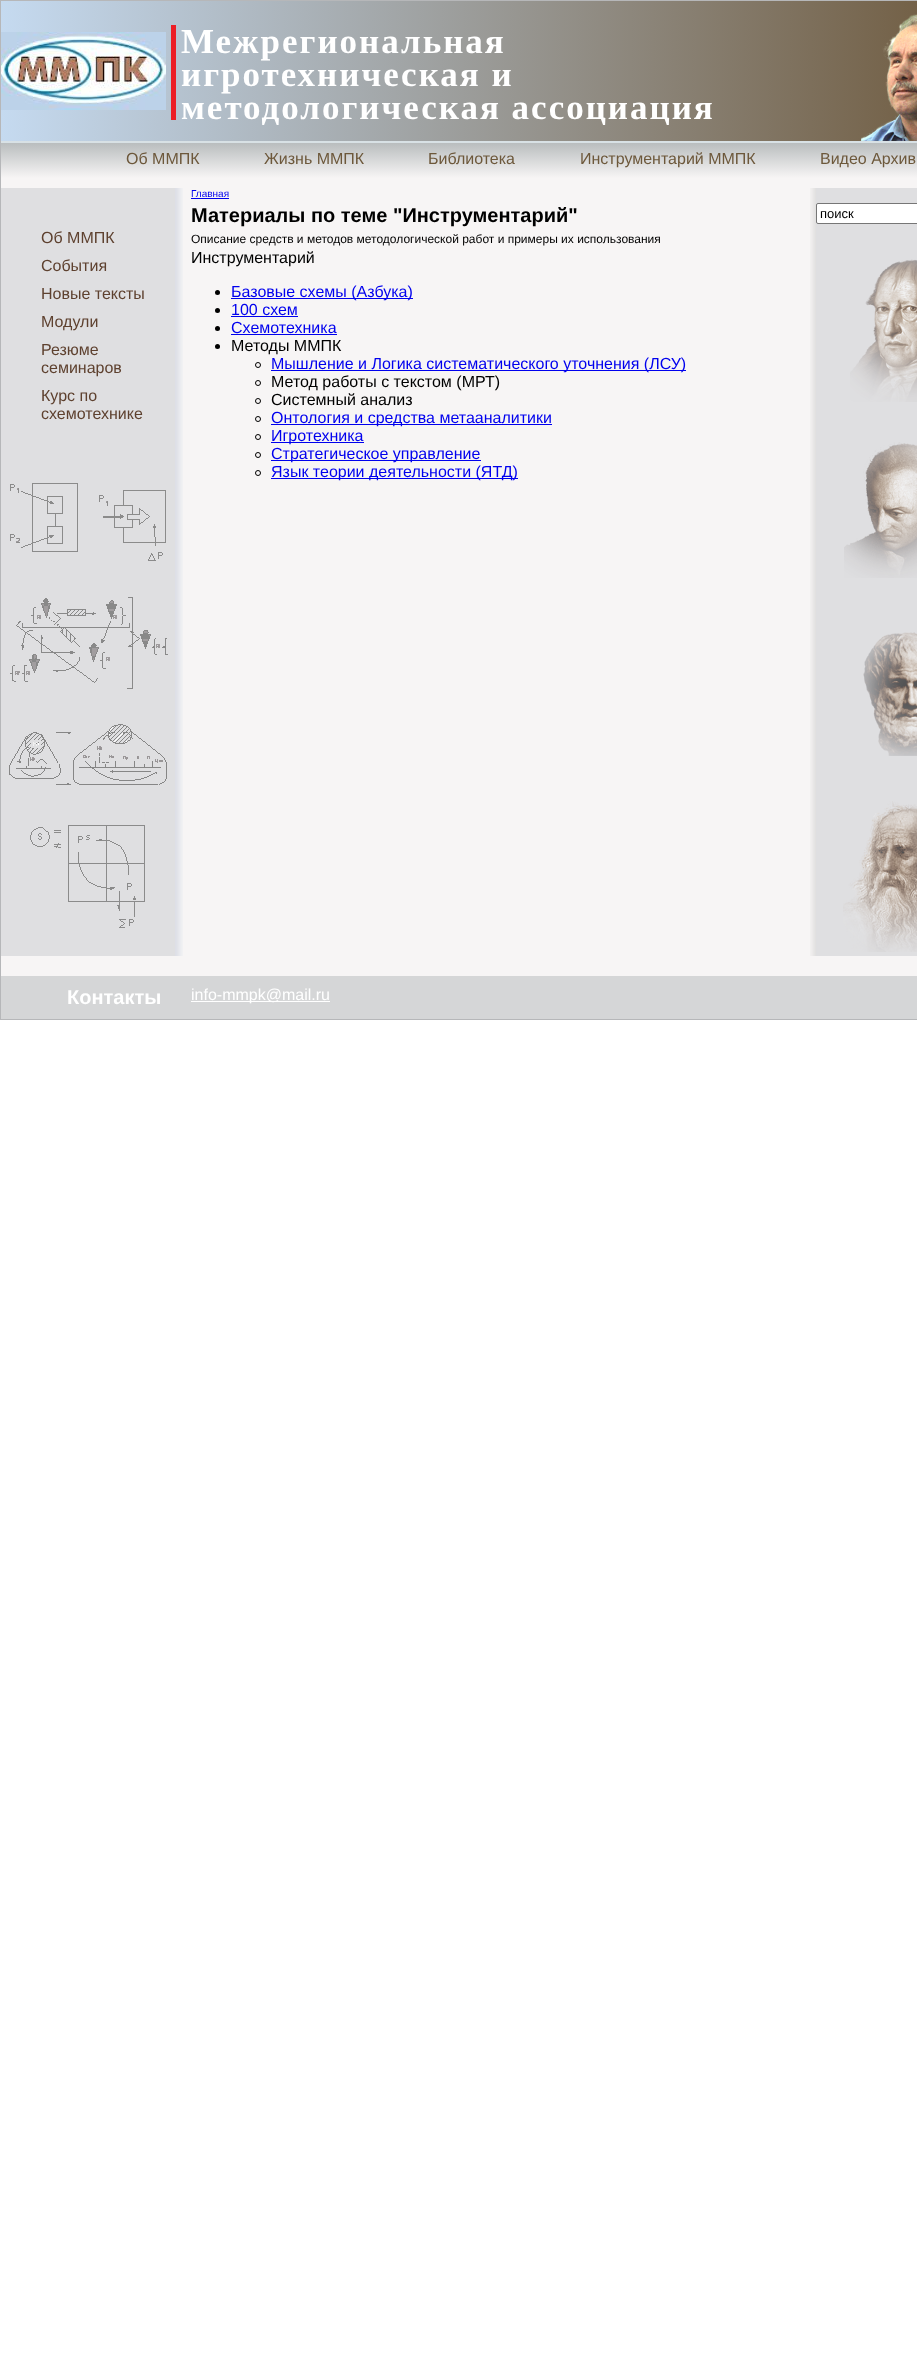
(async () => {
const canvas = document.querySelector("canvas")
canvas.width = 917
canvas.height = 2376
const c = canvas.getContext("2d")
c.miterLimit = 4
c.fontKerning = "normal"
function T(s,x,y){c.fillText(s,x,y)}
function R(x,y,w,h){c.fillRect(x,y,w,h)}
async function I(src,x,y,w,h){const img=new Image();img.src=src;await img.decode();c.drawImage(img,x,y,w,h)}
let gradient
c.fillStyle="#fff"
R(0,0,917,2376)
c.strokeStyle="#b6b7b9"
c.strokeRect(.5,.5,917,1019)
gradient = c.createLinearGradient(1,1,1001,1)
gradient.addColorStop(0,"#c5daf0")
gradient.addColorStop(1,"#6c5638")
c.fillStyle = gradient
R(1,1,916,140)
await I("1.png",1,32,165,78)
c.fillStyle="#ec1d25"
R(171,25,5,95)
c.letterSpacing="2px"
c.font="bold 35px Liberation Serif"
c.fillStyle="#fff"
T("Межрегиональная",181,53)
T("игротехническая и",181,86)
T("методологическая ассоциация",181,119)
await I("2.png",861,14,56,127)
gradient = c.createLinearGradient(1,143,1,178)
gradient.addColorStop(0,"#b9bdbe")
gradient.addColorStop(1,"#f7f5f5")
c.fillStyle = gradient
R(1,143,916,35)
c.fillStyle="#d8e1e5"
R(1,141,916,2)
c.letterSpacing="0px"
c.font="16px Liberation Sans"
c.fillStyle="#6d583b"
T("Об ММПК",126,164)
T("Жизнь ММПК",264,164)
T("Библиотека",428,164)
T("Инструментарий ММПК",580,164)
T("Видео Архив",820,164)
c.fillStyle="#f7f5f5"
R(1,178,916,798)
await I("3.png",175,188,8,768)
c.font="10px Liberation Sans"
c.fillStyle="#00e"
T("Главная",191,197)
R(191,198,38,1)
c.font="bold 20px Liberation Sans"
c.fillStyle="#000"
T("Материалы по теме \"Инструментарий\"",191,222)
c.font="12px Liberation Sans"
T("Описание средств и методов методологической работ и примеры их использования",191,243)
c.font="16px Liberation Sans"
T("Инструментарий",191,263)
c.beginPath()
c.arc(217.5,292.5,2.5,0,7)
c.fill()
c.fillStyle="#00e"
R(231,298,182,1)
T("Базовые схемы (Азбука)",231,297)
c.fillStyle="#000"
c.beginPath()
c.arc(217.5,310.5,2.5,0,7)
c.fill()
c.fillStyle="#00e"
T("100 схем",231,315)
R(231,316,67,1)
c.fillStyle="#000"
c.beginPath()
c.arc(217.5,328.5,2.5,0,7)
c.fill()
c.fillStyle="#00e"
T("Схемотехника",231,333)
R(231,334,106,1)
c.fillStyle="#000"
c.beginPath()
c.arc(217.5,346.5,2.5,0,7)
c.fill()
T("Методы ММПК",231,351)
c.beginPath()
c.arc(258,365,2.5,0,7)
c.strokeStyle="#000"
c.stroke()
c.fillStyle="#00e"
R(271,370,415,1)
T("Мышление и Логика систематического уточнения (ЛСУ)",271,369)
c.beginPath()
c.arc(258,383,2.5,0,7)
c.stroke()
c.fillStyle="#000"
T("Метод работы с текстом (МРТ)",271,387)
c.beginPath()
c.arc(258,401,2.5,0,7)
c.stroke()
T("Системный анализ",271,405)
c.beginPath()
c.arc(258,419,2.5,0,7)
c.stroke()
c.fillStyle="#00e"
R(271,424,281,1)
T("Онтология и средства метааналитики",271,423)
c.beginPath()
c.arc(258,437,2.5,0,7)
c.stroke()
R(271,442,93,1)
T("Игротехника",271,441)
c.beginPath()
c.arc(258,455,2.5,0,7)
c.stroke()
R(271,460,210,1)
T("Стратегическое управление",271,459)
c.beginPath()
c.arc(258,473,2.5,0,7)
c.stroke()
R(271,478,247,1)
T("Язык теории деятельности (ЯТД)",271,477)
await I("4.png",810,188,6,768)
c.fillStyle="#dfdfe1"
R(816,188,101,768)
c.fillStyle="#fff"
c.beginPath()
c.roundRect(816.5,203.5,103,20,1.5)
c.fill()
c.strokeStyle="#767676"
c.stroke()
c.font="13px Liberation Sans"
c.fillStyle="#000"
T("поиск",820,218)
await I("5.png",850,259,67,143)
await I("6.png",844,442,73,136)
await I("7.png",863,632,54,124)
await I("8.png",843,801,74,151)
c.fillStyle="#dfdfe1"
R(1,188,174,768)
c.font="16px Liberation Sans"
c.fillStyle="#5e412f"
T("Об ММПК",41,243)
T("События",41,271)
T("Новые тексты",41,299)
T("Модули",41,327)
T("Резюме",41,355)
T("семинаров",41,373)
T("Курс по",41,401)
T("схемотехнике",41,419)
await I("9.png",10,483,156,78)
await I("10.png",10,597,158,92)
await I("11.png",9,724,158,61)
await I("12.png",30,825,115,103)
c.fillStyle="#d5d6d7"
R(1,976,916,43)
c.font="bold 20px Liberation Sans"
c.fillStyle="#fff"
T("Контакты",67,1004)
R(191,1001,139,1)
c.font="16px Liberation Sans"
T("info-mmpk@mail.ru",191,1000)
})()
